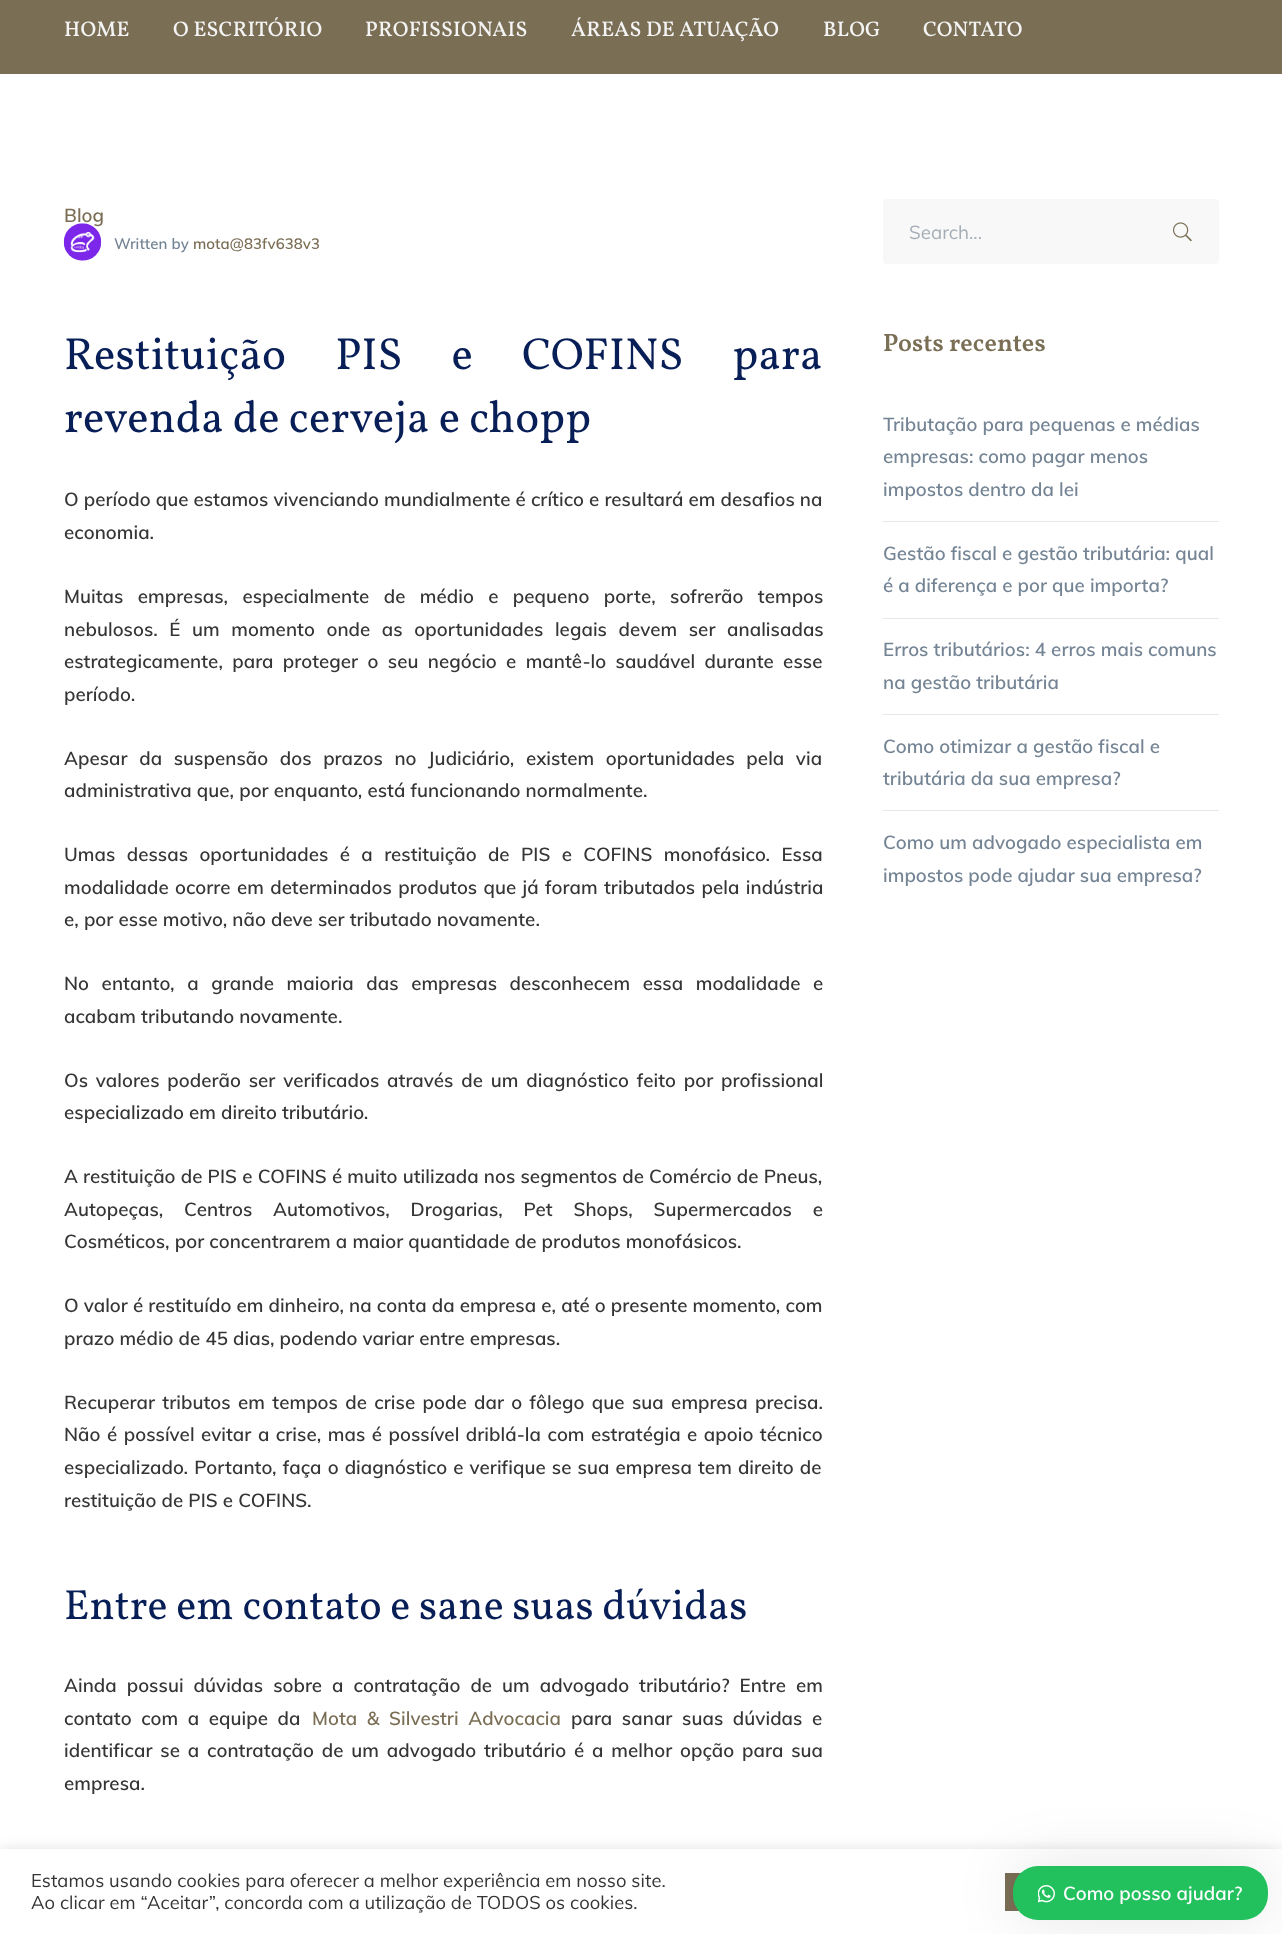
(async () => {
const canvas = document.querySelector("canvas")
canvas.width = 1282
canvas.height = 1934
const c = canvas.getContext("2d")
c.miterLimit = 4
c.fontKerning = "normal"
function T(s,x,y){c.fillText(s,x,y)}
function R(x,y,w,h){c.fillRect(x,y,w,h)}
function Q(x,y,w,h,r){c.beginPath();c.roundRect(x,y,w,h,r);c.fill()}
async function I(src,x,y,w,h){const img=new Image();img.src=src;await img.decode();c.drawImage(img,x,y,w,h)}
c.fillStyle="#fff"
R(0,0,1282,1934)
c.fillStyle="#7a6e55"
R(0,0,1282,74)
c.letterSpacing="0.25px"
c.font="500 21.25px Vollkorn"
c.fillStyle="#f4f4f4"
T("HOME",64,36)
T("O ESCRITÓRIO",173,36)
T("PROFISSIONAIS",365,36)
T("ÁREAS DE ATUAÇÃO",571,36)
T("BLOG",823,36)
T("CONTATO",923,36)
c.letterSpacing="0.05px"
c.font="600 18.75px Muli"
c.fillStyle="#7a6e55"
T("Blog",64,222)
await I("1.png",63,223,39,38)
c.font="600 15px Muli"
c.fillStyle="#748494"
T("Written by",114,249)
c.fillStyle="#7a6e55"
T("mota@83fv638v3",193,249)
c.letterSpacing="0.1px"
c.wordSpacing="40px"
c.font="45px Vollkorn"
c.fillStyle="#071e57"
T("Restituição PIS e COFINS para",64,369)
c.wordSpacing="0px"
T("revenda de cerveja e chopp",64,432)
c.letterSpacing="0.05px"
c.font="600 18.75px Muli"
c.fillStyle="#353535"
T("O período que estamos vivenciando mundialmente é crítico e resultará em desafios na",64,506)
T("economia.",64,539)
c.wordSpacing="9.25px"
T("Muitas empresas, especialmente de médio e pequeno porte, sofrerão tempos",64,603)
c.wordSpacing="6.5px"
T("nebulosos. É um momento onde as oportunidades legais devem ser analisadas",64,636)
c.wordSpacing="4.25px"
T("estrategicamente, para proteger o seu negócio e mantê-lo saudável durante esse",64,668)
c.wordSpacing="0px"
T("período.",64,701)
c.wordSpacing="6.5px"
T("Apesar da suspensão dos prazos no Judiciário, existem oportunidades pela via",64,765)
c.wordSpacing="0px"
T("administrativa que, por enquanto, está funcionando normalmente.",64,797)
c.wordSpacing="6.25px"
T("Umas dessas oportunidades é a restituição de PIS e COFINS monofásico. Essa",64,861)
c.wordSpacing="1.25px"
T("modalidade ocorre em determinados produtos que já foram tributados pela indústria",64,894)
c.wordSpacing="0px"
T("e, por esse motivo, não deve ser tributado novamente.",64,926)
c.wordSpacing="7.5px"
T("No entanto, a grande maioria das empresas desconhecem essa modalidade e",64,990)
c.wordSpacing="0px"
T("acabam tributando novamente.",64,1023)
c.wordSpacing="2.75px"
T("Os valores poderão ser verificados através de um diagnóstico feito por profissional",64,1087)
c.wordSpacing="0px"
T("especializado em direito tributário.",64,1119)
c.wordSpacing="0.1px"
T("A restituição de PIS e COFINS é muito utilizada nos segmentos de Comércio de Pneus,",64,1183)
c.wordSpacing="15.75px"
T("Autopeças, Centros Automotivos, Drogarias, Pet Shops, Supermercados e",64,1216)
c.wordSpacing="0px"
T("Cosméticos, por concentrarem a maior quantidade de produtos monofásicos.",64,1248)
T("O valor é restituído em dinheiro, na conta da empresa e, até o presente momento, com",64,1312)
T("prazo médio de 45 dias, podendo variar entre empresas.",64,1345)
c.wordSpacing="2.25px"
T("Recuperar tributos em tempos de crise pode dar o fôlego que sua empresa precisa.",64,1409)
c.wordSpacing="1.4px"
T("Não é possível evitar a crise, mas é possível driblá-la com estratégia e apoio técnico",64,1441)
c.wordSpacing="1px"
T("especializado. Portanto, faça o diagnóstico e verifique se sua empresa tem direito de",64,1474)
c.wordSpacing="0px"
T("restituição de PIS e COFINS.",64,1507)
c.letterSpacing="0.1px"
c.font="42.25px Vollkorn"
c.fillStyle="#071e57"
T("Entre em contato e sane suas dúvidas",64,1619)
c.letterSpacing="0.05px"
c.wordSpacing="4.9px"
c.font="600 18.75px Muli"
c.fillStyle="#353535"
T("Ainda possui dúvidas sobre a contratação de um advogado tributário? Entre em",64,1692)
c.wordSpacing="4.5px"
T("contato com a equipe da",64,1725)
c.fillStyle="#7a6e55"
T("Mota & Silvestri Advocacia",312,1725)
c.fillStyle="#353535"
T("para sanar suas dúvidas e",571,1725)
c.wordSpacing="2.75px"
T("identificar se a contratação de um advogado tributário é a melhor opção para sua",64,1757)
c.wordSpacing="0px"
T("empresa.",64,1790)
c.fillStyle="#f8f8f8"
Q(883,199,336,65,4)
c.letterSpacing="0px"
c.font="18.75px Muli"
c.fillStyle="#a5aeb8"
T("Search...",909,239)
await I("2.png",1173,222,19,20)
c.letterSpacing="0.1px"
c.font="600 25px Vollkorn"
c.fillStyle="#7a6e55"
T("Posts recentes",883,351)
c.letterSpacing="0.05px"
c.font="600 18.75px Muli"
c.fillStyle="#748494"
T("Tributação para pequenas e médias",883,431)
T("empresas: como pagar menos",883,463)
T("impostos dentro da lei",883,496)
c.fillStyle="#e7e7e7"
R(883,521,336,1)
c.fillStyle="#748494"
T("Gestão fiscal e gestão tributária: qual",883,560)
T("é a diferença e por que importa?",883,592)
c.fillStyle="#e7e7e7"
R(883,618,336,1)
c.fillStyle="#748494"
T("Erros tributários: 4 erros mais comuns",883,656)
T("na gestão tributária",883,689)
c.fillStyle="#e7e7e7"
R(883,714,336,1)
c.fillStyle="#748494"
T("Como otimizar a gestão fiscal e",883,753)
T("tributária da sua empresa?",883,785)
c.fillStyle="#e7e7e7"
R(883,810,336,1)
c.fillStyle="#748494"
T("Como um advogado especialista em",883,849)
T("impostos pode ajudar sua empresa?",883,882)
c.fillStyle="#acabab4d"
c.filter="blur(6px)"
c.beginPath()
c.rect(0,1848,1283,86)
c.fill()
c.filter="none"
c.fillStyle="#fff"
R(0,1849,1282,85)
c.font="18.35px Muli"
c.fillStyle="#353535"
T("Estamos usando cookies para oferecer a melhor experiência em nosso site.",31,1887)
T("Ao clicar em “Aceitar”, concorda com a utilização de TODOS os cookies.",31,1909)
c.fillStyle="#7a6e55"
R(1005,1873,16,38)
c.fillStyle="#0000001a"
c.filter="blur(31px)"
c.beginPath()
c.roundRect(1013,1866,255,54,25)
c.fill()
c.filter="none"
c.fillStyle="#22c15e"
Q(1013,1866,255,54,25)
await I("3.png",1038,1885,17,18)
c.font="600 18.75px Muli"
c.fillStyle="#fff"
T("Como posso ajudar?",1063,1900)
})()
